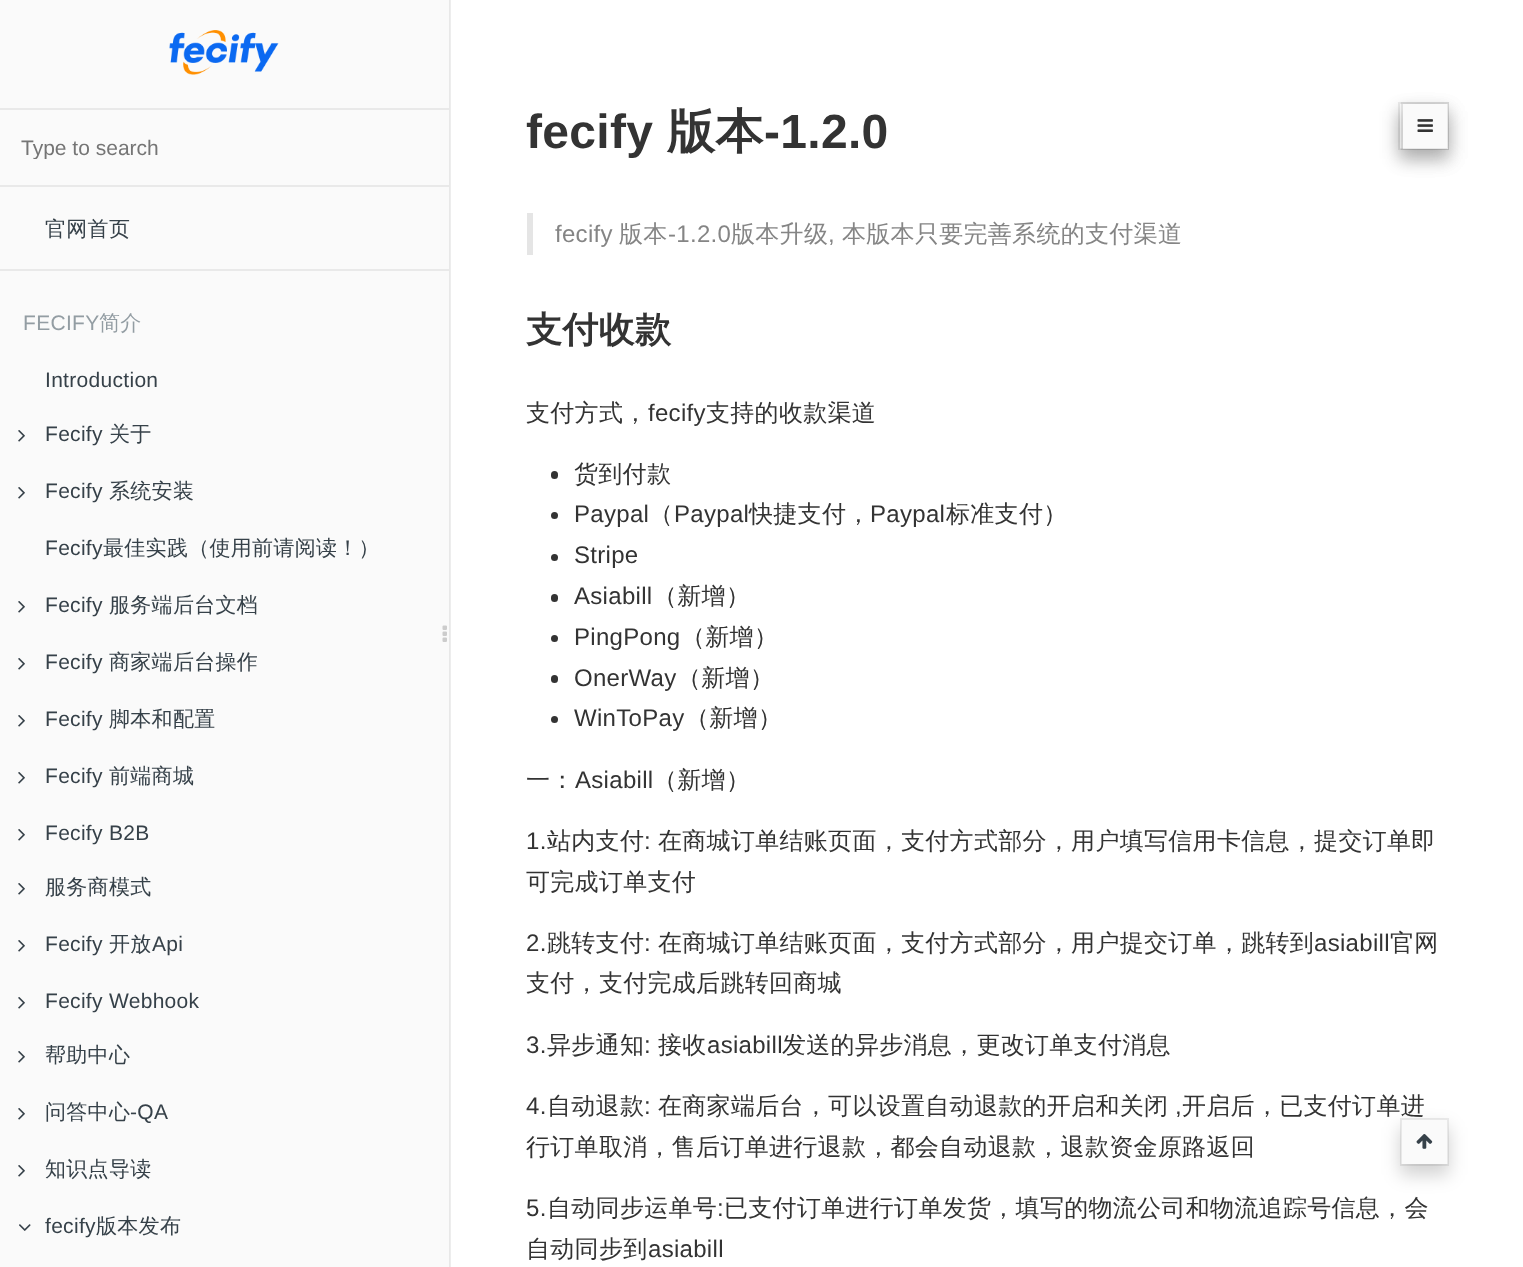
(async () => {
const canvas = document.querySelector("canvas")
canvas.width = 1523
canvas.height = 1267
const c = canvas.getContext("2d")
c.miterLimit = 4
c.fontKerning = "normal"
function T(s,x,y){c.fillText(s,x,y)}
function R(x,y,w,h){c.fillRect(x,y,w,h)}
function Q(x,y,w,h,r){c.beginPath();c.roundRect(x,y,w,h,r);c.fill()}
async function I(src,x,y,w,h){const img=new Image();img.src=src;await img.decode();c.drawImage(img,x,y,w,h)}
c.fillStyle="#fff"
R(0,0,1523,1267)
c.fillStyle="#ededed"
R(450,0,1,1267)
c.fillStyle="#fafafa"
R(0,0,449,1267)
c.fillStyle="#e8e8e8"
R(449,0,1,1267)
await I("1.png",169,30,110,45)
c.fillStyle="#e9e9e9"
R(0,108,449,2)
R(0,185,449,2)
c.save()
c.beginPath()
c.rect(21,135,407,24)
c.clip()
c.font="21px Liberation Sans"
c.fillStyle="#757575"
T("Type to search",21,155)
c.restore()
c.letterSpacing="0.3px"
c.font="500 21px WenQuanYi Zen Hei"
c.fillStyle="#364149"
T("官网首页",45,236)
c.fillStyle="#e9e9e9"
R(0,269,449,2)
c.font="21px Liberation Sans"
c.fillStyle="#939da3"
T("FECIFY",23,330)
c.font="500 21px WenQuanYi Zen Hei"
T("简介",99,330)
c.font="21px Liberation Sans"
c.fillStyle="#364149"
T("Introduction",45,387)
await I("2.png",18,430,7,12)
T("Fecify",45,441)
c.font="500 21px WenQuanYi Zen Hei"
T("关于",109,441)
await I("2.png",18,487,7,12)
c.font="21px Liberation Sans"
T("Fecify",45,498)
c.font="500 21px WenQuanYi Zen Hei"
T("系统安装",109,498)
c.font="21px Liberation Sans"
T("Fecify",45,555)
c.font="500 21px WenQuanYi Zen Hei"
T("最佳实践（使用前请阅读！）",103,555)
await I("2.png",18,601,7,12)
c.font="21px Liberation Sans"
T("Fecify",45,612)
c.font="500 21px WenQuanYi Zen Hei"
T("服务端后台文档",109,612)
await I("2.png",18,658,7,12)
c.font="21px Liberation Sans"
T("Fecify",45,669)
c.font="500 21px WenQuanYi Zen Hei"
T("商家端后台操作",109,669)
await I("2.png",18,715,7,12)
c.font="21px Liberation Sans"
T("Fecify",45,726)
c.font="500 21px WenQuanYi Zen Hei"
T("脚本和配置",109,726)
await I("2.png",18,772,7,12)
c.font="21px Liberation Sans"
T("Fecify",45,783)
c.font="500 21px WenQuanYi Zen Hei"
T("前端商城",109,783)
await I("2.png",18,829,7,12)
c.font="21px Liberation Sans"
T("Fecify B2B",45,840)
await I("2.png",18,883,7,12)
c.font="500 21px WenQuanYi Zen Hei"
T("服务商模式",45,894)
await I("2.png",18,940,7,12)
c.font="21px Liberation Sans"
T("Fecify",45,951)
c.font="500 21px WenQuanYi Zen Hei"
T("开放",109,951)
c.font="21px Liberation Sans"
T("Api",152,951)
await I("2.png",18,997,7,12)
T("Fecify Webhook",45,1008)
await I("2.png",18,1051,7,12)
c.font="500 21px WenQuanYi Zen Hei"
T("帮助中心",45,1062)
await I("2.png",18,1108,7,12)
T("问答中心",45,1119)
c.font="21px Liberation Sans"
T("-QA",130,1119)
await I("2.png",18,1165,7,12)
c.font="500 21px WenQuanYi Zen Hei"
T("知识点导读",45,1176)
await I("3.png",19,1224,12,7)
c.font="21px Liberation Sans"
T("fecify",45,1233)
c.font="500 21px WenQuanYi Zen Hei"
T("版本发布",96,1233)
await I("4.png",442,625,5,17)
c.fillStyle="#0000002e"
c.filter="blur(9px)"
c.beginPath()
c.roundRect(1398,111,51,48,1.5)
c.fill()
c.filter="none"
c.fillStyle="#fafafa"
R(1400,104,3,45)
c.strokeStyle="#00000012"
c.lineWidth=2
c.strokeRect(1399,103,49,46)
c.font="bold 48px Liberation Sans"
c.fillStyle="#333"
T("fecify",526,148)
c.font="bold 48px WenQuanYi Zen Hei"
T("版本",667,148)
c.font="bold 48px Liberation Sans"
T("-1.2.0",764,148)
c.fillStyle="#0000002e"
c.filter="blur(9px)"
c.beginPath()
c.roundRect(1401,111,48,48,1.5)
c.fill()
c.filter="none"
c.fillStyle="#fafafa"
R(1403,104,45,45)
c.strokeRect(1402,103,46,46)
await I("5.png",1417,119,16,13)
c.fillStyle="#e5e5e5"
R(527,213,6,42)
c.font="24px Liberation Sans"
c.fillStyle="#858585"
T("fecify",555,242)
c.font="500 24px WenQuanYi Zen Hei"
T("版本",619,242)
c.font="24px Liberation Sans"
T("-1.2.0",668,242)
c.font="500 24px WenQuanYi Zen Hei"
T("版本升级",731,242)
c.font="24px Liberation Sans"
T(",",828,242)
c.font="500 24px WenQuanYi Zen Hei"
T("本版本只要完善系统的支付渠道",842,242)
c.font="bold 36px WenQuanYi Zen Hei"
c.fillStyle="#333"
T("支付收款",526,342)
c.font="500 24px WenQuanYi Zen Hei"
T("支付方式，",526,421)
c.font="24px Liberation Sans"
T("fecify",648,421)
c.font="500 24px WenQuanYi Zen Hei"
T("支持的收款渠道",706,421)
Q(551,471,7,8,3.5)
T("货到付款",574,482)
c.beginPath()
c.arc(554.5,515.5,3.5,0,7)
c.fill()
c.font="24px Liberation Sans"
T("Paypal",574,522)
c.font="500 24px WenQuanYi Zen Hei"
T("（",649,522)
c.font="24px Liberation Sans"
T("Paypal",674,522)
c.font="500 24px WenQuanYi Zen Hei"
T("快捷支付，",749,522)
c.font="24px Liberation Sans"
T("Paypal",870,522)
c.font="500 24px WenQuanYi Zen Hei"
T("标准支付）",946,522)
c.beginPath()
c.arc(554.5,557.5,3.5,0,7)
c.fill()
c.font="24px Liberation Sans"
T("Stripe",574,563)
Q(551,594,7,8,3.5)
T("Asiabill",574,604)
c.font="500 24px WenQuanYi Zen Hei"
T("（新增）",653,604)
c.beginPath()
c.arc(554.5,638.5,3.5,0,7)
c.fill()
c.font="24px Liberation Sans"
T("PingPong",574,645)
c.font="500 24px WenQuanYi Zen Hei"
T("（新增）",681,645)
Q(551,675,7,8,3.5)
c.font="24px Liberation Sans"
T("OnerWay",574,686)
c.font="500 24px WenQuanYi Zen Hei"
T("（新增）",677,686)
c.beginPath()
c.arc(554.5,719.5,3.5,0,7)
c.fill()
c.font="24px Liberation Sans"
T("WinToPay",574,726)
c.font="500 24px WenQuanYi Zen Hei"
T("（新增）",685,726)
T("一：",526,788)
c.font="24px Liberation Sans"
T("Asiabill",575,788)
c.font="500 24px WenQuanYi Zen Hei"
T("（新增）",653,788)
c.font="24px Liberation Sans"
T("1.",526,849)
c.font="500 24px WenQuanYi Zen Hei"
T("站内支付",547,849)
c.font="24px Liberation Sans"
T(":",644,849)
c.font="500 24px WenQuanYi Zen Hei"
T("在商城订单结账页面，支付方式部分，用户填写信用卡信息，提交订单即",658,849)
T("可完成订单支付",526,890)
c.font="24px Liberation Sans"
T("2.",526,951)
c.font="500 24px WenQuanYi Zen Hei"
T("跳转支付",547,951)
c.font="24px Liberation Sans"
T(":",644,951)
c.font="500 24px WenQuanYi Zen Hei"
T("在商城订单结账页面，支付方式部分，用户提交订单，跳转到",658,951)
c.font="24px Liberation Sans"
T("asiabill",1314,951)
c.font="500 24px WenQuanYi Zen Hei"
T("官网",1390,951)
T("支付，支付完成后跳转回商城",526,991)
c.font="24px Liberation Sans"
T("3.",526,1053)
c.font="500 24px WenQuanYi Zen Hei"
T("异步通知",547,1053)
c.font="24px Liberation Sans"
T(":",644,1053)
c.font="500 24px WenQuanYi Zen Hei"
T("接收",658,1053)
c.font="24px Liberation Sans"
T("asiabill",707,1053)
c.font="500 24px WenQuanYi Zen Hei"
T("发送的异步消息，更改订单支付消息",782,1053)
c.font="24px Liberation Sans"
T("4.",526,1114)
c.font="500 24px WenQuanYi Zen Hei"
T("自动退款",547,1114)
c.font="24px Liberation Sans"
T(":",644,1114)
c.font="500 24px WenQuanYi Zen Hei"
T("在商家端后台，可以设置自动退款的开启和关闭",658,1114)
c.font="24px Liberation Sans"
T(",",1175,1114)
c.font="500 24px WenQuanYi Zen Hei"
T("开启后，已支付订单进",1182,1114)
T("行订单取消，售后订单进行退款，都会自动退款，退款资金原路返回",526,1155)
c.fillStyle="#0000002e"
c.filter="blur(9px)"
c.beginPath()
c.roundRect(1400,1127,49,48,1.5)
c.fill()
c.filter="none"
c.fillStyle="#fafafa"
R(1401,1119,47,45)
c.strokeRect(1401,1119,47,46)
await I("6.png",1416,1134,17,15)
c.font="24px Liberation Sans"
c.fillStyle="#333"
T("5.",526,1216)
c.font="500 24px WenQuanYi Zen Hei"
T("自动同步运单号",547,1216)
c.font="24px Liberation Sans"
T(":",717,1216)
c.font="500 24px WenQuanYi Zen Hei"
T("已支付订单进行订单发货，填写的物流公司和物流追踪号信息，会",724,1216)
T("自动同步到",526,1257)
c.font="24px Liberation Sans"
T("asiabill",648,1257)
})()
